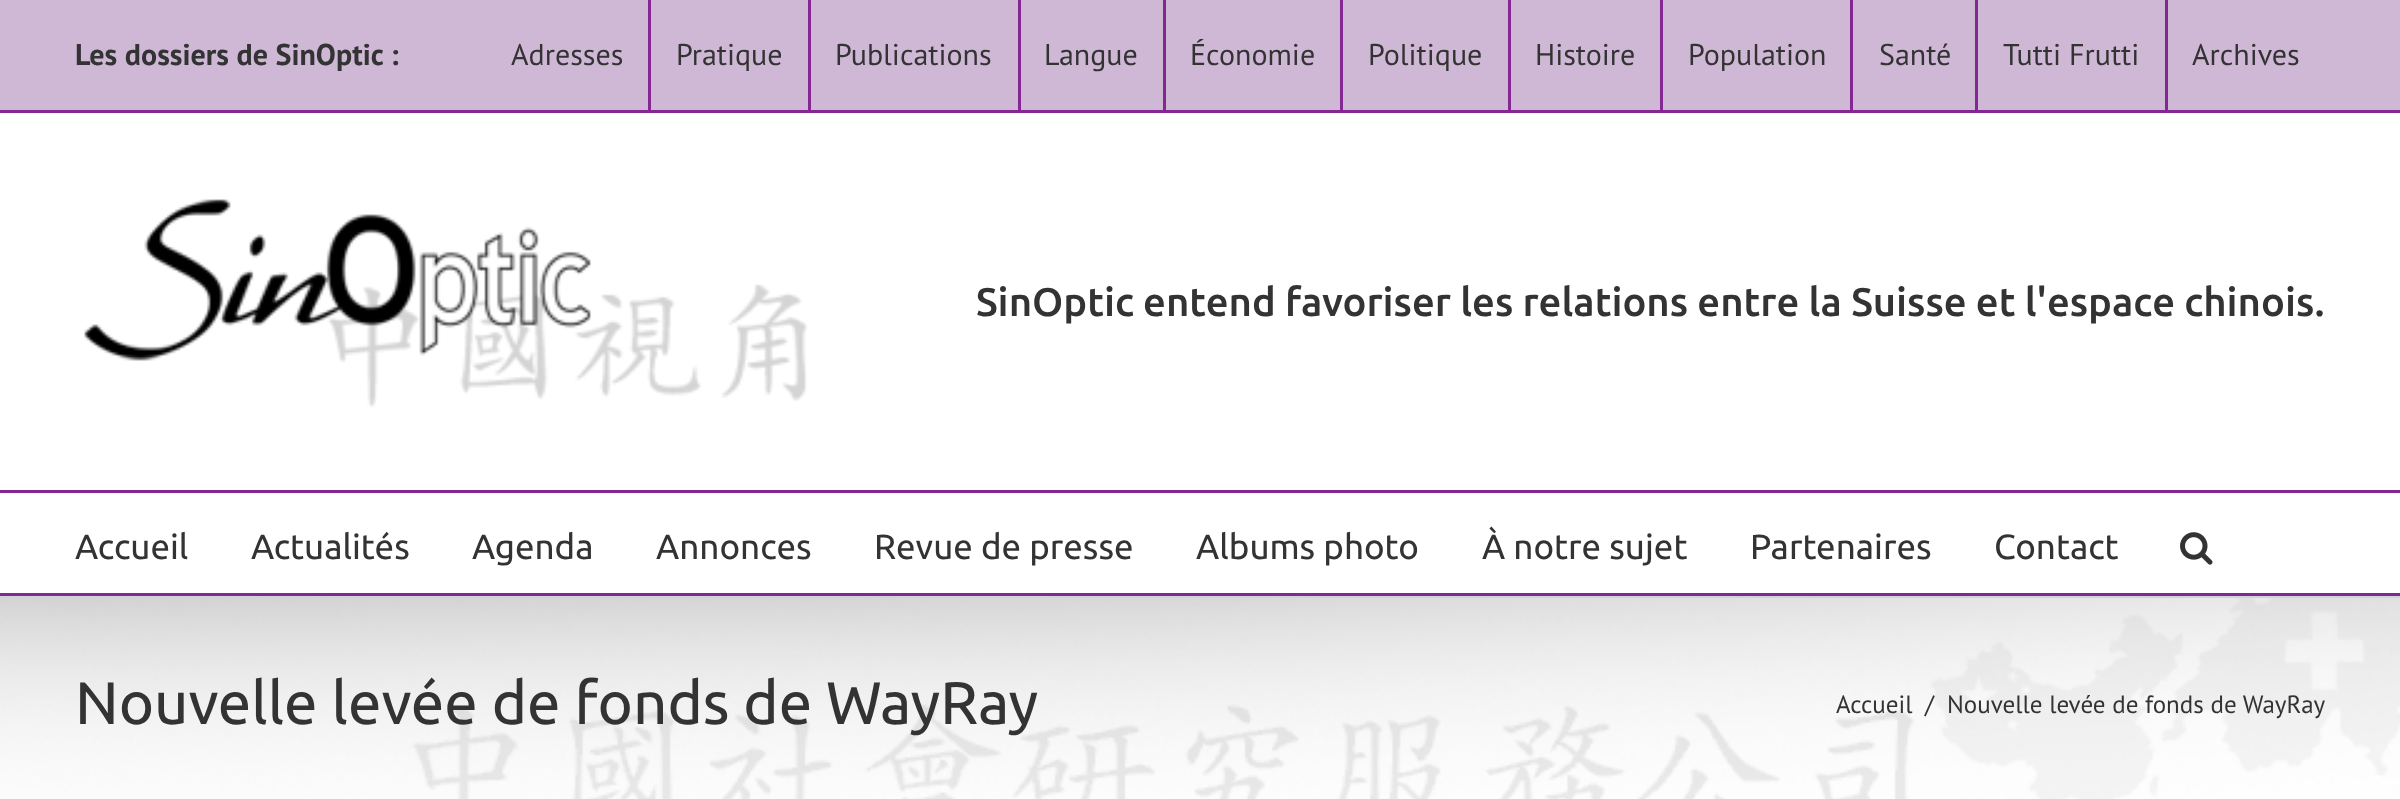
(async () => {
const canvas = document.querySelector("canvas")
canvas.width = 2400
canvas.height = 799
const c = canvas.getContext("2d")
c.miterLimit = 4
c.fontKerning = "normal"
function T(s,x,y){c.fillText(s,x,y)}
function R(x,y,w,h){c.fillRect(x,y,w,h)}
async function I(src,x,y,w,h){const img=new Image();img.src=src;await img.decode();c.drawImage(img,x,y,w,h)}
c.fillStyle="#fff"
R(0,0,2400,799)
c.fillStyle="#cfb8d5"
R(0,0,2400,110)
c.fillStyle="#852793"
R(0,110,2400,3)
c.font="bold 30px PT Sans"
c.fillStyle="#333"
T("Les dossiers de SinOptic :",75,65)
c.font="30px PT Sans"
T("Adresses",511,65)
c.fillStyle="#852793"
R(648,0,3,110)
c.fillStyle="#333"
T("Pratique",676,65)
c.fillStyle="#852793"
R(808,0,3,110)
c.fillStyle="#333"
T("Publications",835,65)
c.fillStyle="#852793"
R(1018,0,3,110)
c.fillStyle="#333"
T("Langue",1044,65)
c.fillStyle="#852793"
R(1163,0,3,110)
c.fillStyle="#333"
T("Économie",1190,65)
c.fillStyle="#852793"
R(1340,0,3,110)
c.fillStyle="#333"
T("Politique",1368,65)
c.fillStyle="#852793"
R(1508,0,3,110)
c.fillStyle="#333"
T("Histoire",1535,65)
c.fillStyle="#852793"
R(1660,0,3,110)
c.fillStyle="#333"
T("Population",1688,65)
c.fillStyle="#852793"
R(1850,0,3,110)
c.fillStyle="#333"
T("Santé",1879,65)
c.fillStyle="#852793"
R(1975,0,3,110)
c.fillStyle="#333"
T("Tutti Frutti",2003,65)
c.fillStyle="#852793"
R(2165,0,3,110)
c.fillStyle="#333"
T("Archives",2192,65)
c.fillStyle="#852793"
R(0,490,2400,3)
await I("1.png",84,199,724,209)
c.font="500 40px Ubuntu"
c.fillStyle="#333"
T("SinOptic entend favoriser les relations entre la Suisse et l'espace chinois.",976,316)
c.fillStyle="#852793"
R(0,593,2400,3)
c.font="35px Ubuntu"
c.fillStyle="#333"
T("Accueil",75,559)
T("Actualités",251,559)
T("Agenda",472,559)
T("Annonces",656,559)
T("Revue de presse",874,559)
T("Albums photo",1196,559)
T("À notre sujet",1482,559)
T("Partenaires",1750,559)
T("Contact",1994,559)
await I("2.png",2180,532,33,33)
await I("3.png",0,598,2400,201)
c.fillStyle="#d2d3d4"
R(0,596,2400,2)
c.font="60px Ubuntu"
c.fillStyle="#333"
T("Nouvelle levée de fonds de WayRay",75,724)
c.font="25px PT Sans"
T("Accueil",1836,713)
T("/",1925,713)
T("Nouvelle levée de fonds de WayRay",1947,713)
})()
